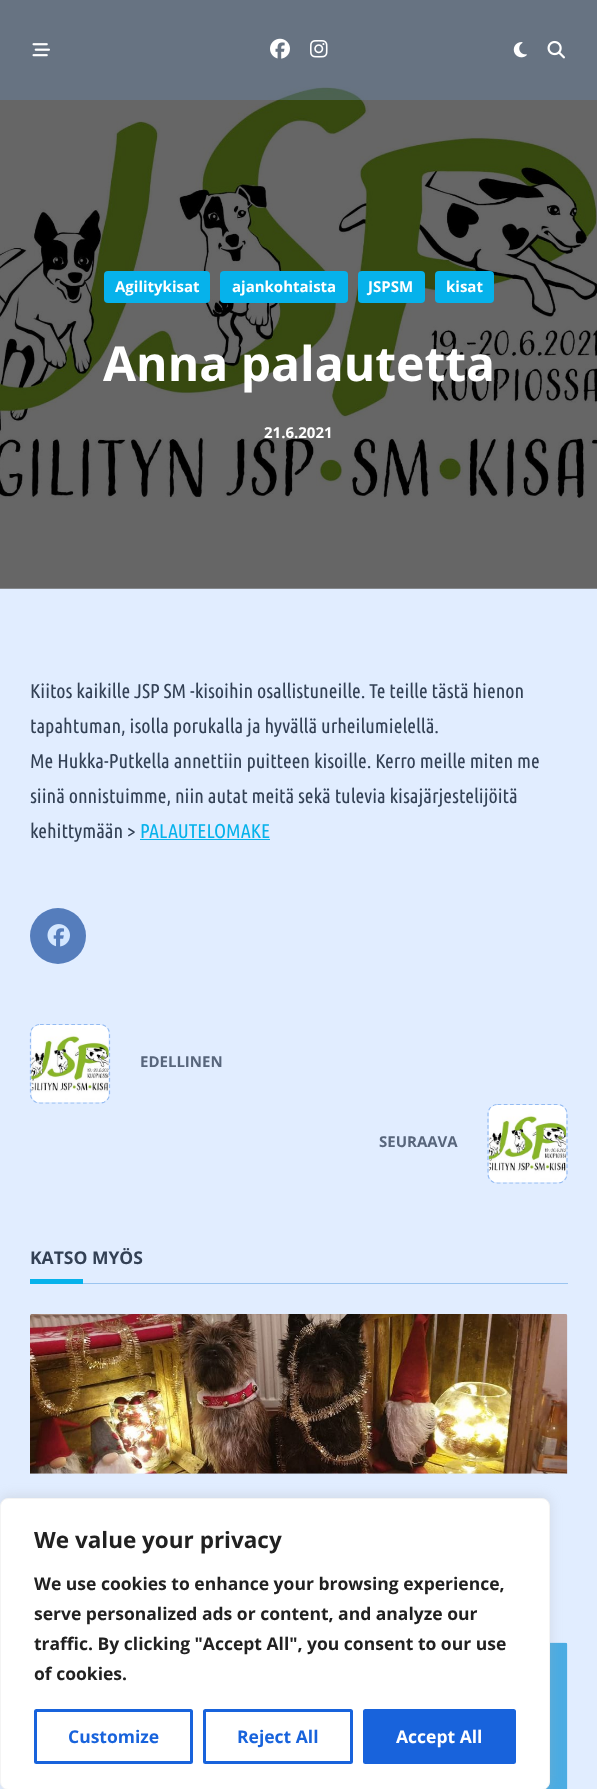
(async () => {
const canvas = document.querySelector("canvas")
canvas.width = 597
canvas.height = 1789
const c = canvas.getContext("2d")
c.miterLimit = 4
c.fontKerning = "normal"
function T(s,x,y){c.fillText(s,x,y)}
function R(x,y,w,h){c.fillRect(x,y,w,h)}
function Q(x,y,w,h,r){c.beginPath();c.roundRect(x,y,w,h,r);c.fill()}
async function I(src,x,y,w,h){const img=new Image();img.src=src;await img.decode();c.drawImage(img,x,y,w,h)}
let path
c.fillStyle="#e1edff"
R(0,0,597,1789)
await I("6.png",0,0,597,589)
c.fillStyle="#6883a66e"
R(0,0,597,100)
await I("1.png",32,43,18,14)
await I("2.png",270,38,20,21)
await I("3.png",310,40,18,18)
await I("4.png",513,42,14,16)
await I("5.png",547,40,18,19)
c.fillStyle="#06b2eb"
Q(104,271,106,32,4)
c.font="bold 15px Open Sans"
c.fillStyle="#fff"
T("Agilitykisat",115,292)
c.fillStyle="#06b2eb"
Q(220,271,128,32,4)
c.fillStyle="#fff"
T("ajankohtaista",232,292)
c.fillStyle="#06b2eb"
Q(358,271,67,32,4)
c.fillStyle="#fff"
T("JSPSM",368,292)
c.fillStyle="#06b2eb"
Q(435,271,59,32,4)
c.fillStyle="#fff"
T("kisat",446,292)
c.font="bold 48px Open Sans"
T("Anna palautetta",103,381)
c.font="bold 15px Open Sans"
T("21.6.2021",264,438)
c.font="20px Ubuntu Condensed"
c.fillStyle="#334155"
T("Kiitos kaikille JSP SM -kisoihin osallistuneille. Te teille tästä hienon",30,698)
T("tapahtuman, isolla porukalla ja hyvällä urheilumielellä.",30,733)
T("Me Hukka-Putkella annettiin puitteen kisoille. Kerro meille miten me",30,768)
T("siinä onnistuimme, niin autat meitä sekä tulevia kisajärjestelijöitä",30,803)
T("kehittymään >",30,838)
c.fillStyle="#06b2eb"
T("PALAUTELOMAKE",140,838)
R(140,839,130,1)
c.fillStyle="#557dbc"
c.beginPath()
c.arc(58,936,28,0,7)
c.fill()
await I("7.png",47,924,23,23)
path = new Path2D("M40 1024.5h60c5 0 9.5 4 9.5 9.5v60c0 5-4.5 9-9.5 9h-60c-5 0-9.5-4-9.5-9v-60c0-5.5 4.5-9.5 9.5-9.5z")
c.strokeStyle="#94bbf2"
c.lineWidth=1.2
c.setLineDash([3.75,2.5])
c.stroke(path)
await I("8.png",31,1025,78,78)
c.font="bold 15px Open Sans"
c.fillStyle="#58667c"
T("EDELLINEN",140,1067)
T("SEURAAVA",379,1147)
path = new Path2D("M497.5 1104.5h60c5 0 9.5 4 9.5 9.5v60c0 5-4.5 9-9.5 9h-60c-5 0-9.5-4-9.5-9v-60c0-5.5 4.5-9.5 9.5-9.5z")
c.stroke(path)
await I("9.png",488,1105,79,78)
c.fillStyle="#9bc5f0"
R(83,1283,485,1)
c.font="bold 17.5px Open Sans"
c.fillStyle="#334155"
T("KATSO MYÖS",30,1264)
c.fillStyle="#06b2eb"
R(30,1279,53,5)
await I("10.png",30,1314,538,160)
await I("11.png",545,1642,23,147)
c.fillStyle="#acabab4d"
c.filter="blur(6px)"
c.beginPath()
c.roundRect(0,1496,550,293,8)
c.fill()
c.filter="none"
c.fillStyle="#fff"
c.beginPath()
c.roundRect(.5,1498.5,549,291,7.5)
c.fill()
c.strokeStyle="#f4f4f4"
c.lineWidth=1
c.setLineDash([])
c.stroke()
c.font="bold 22.5px Open Sans"
c.fillStyle="#212121"
T("We value your privacy",34,1548)
c.font="bold 17.5px Open Sans"
T("We use cookies to enhance your browsing experience,",34,1590)
T("serve personalized ads or content, and analyze our",34,1620)
T("traffic. By clicking \"Accept All\", you consent to our use",34,1650)
T("of cookies.",34,1680)
c.beginPath()
c.roundRect(35.5,1710.5,156,52,1)
c.strokeStyle="#1863dc"
c.lineWidth=3
c.stroke()
c.fillStyle="#1863dc"
T("Customize",68,1743)
c.beginPath()
c.roundRect(204.5,1710.5,147,52,1)
c.stroke()
T("Reject All",237,1743)
c.beginPath()
c.roundRect(364.5,1710.5,150,52,1)
c.fill()
c.stroke()
c.fillStyle="#fff"
T("Accept All",396,1743)
})()
